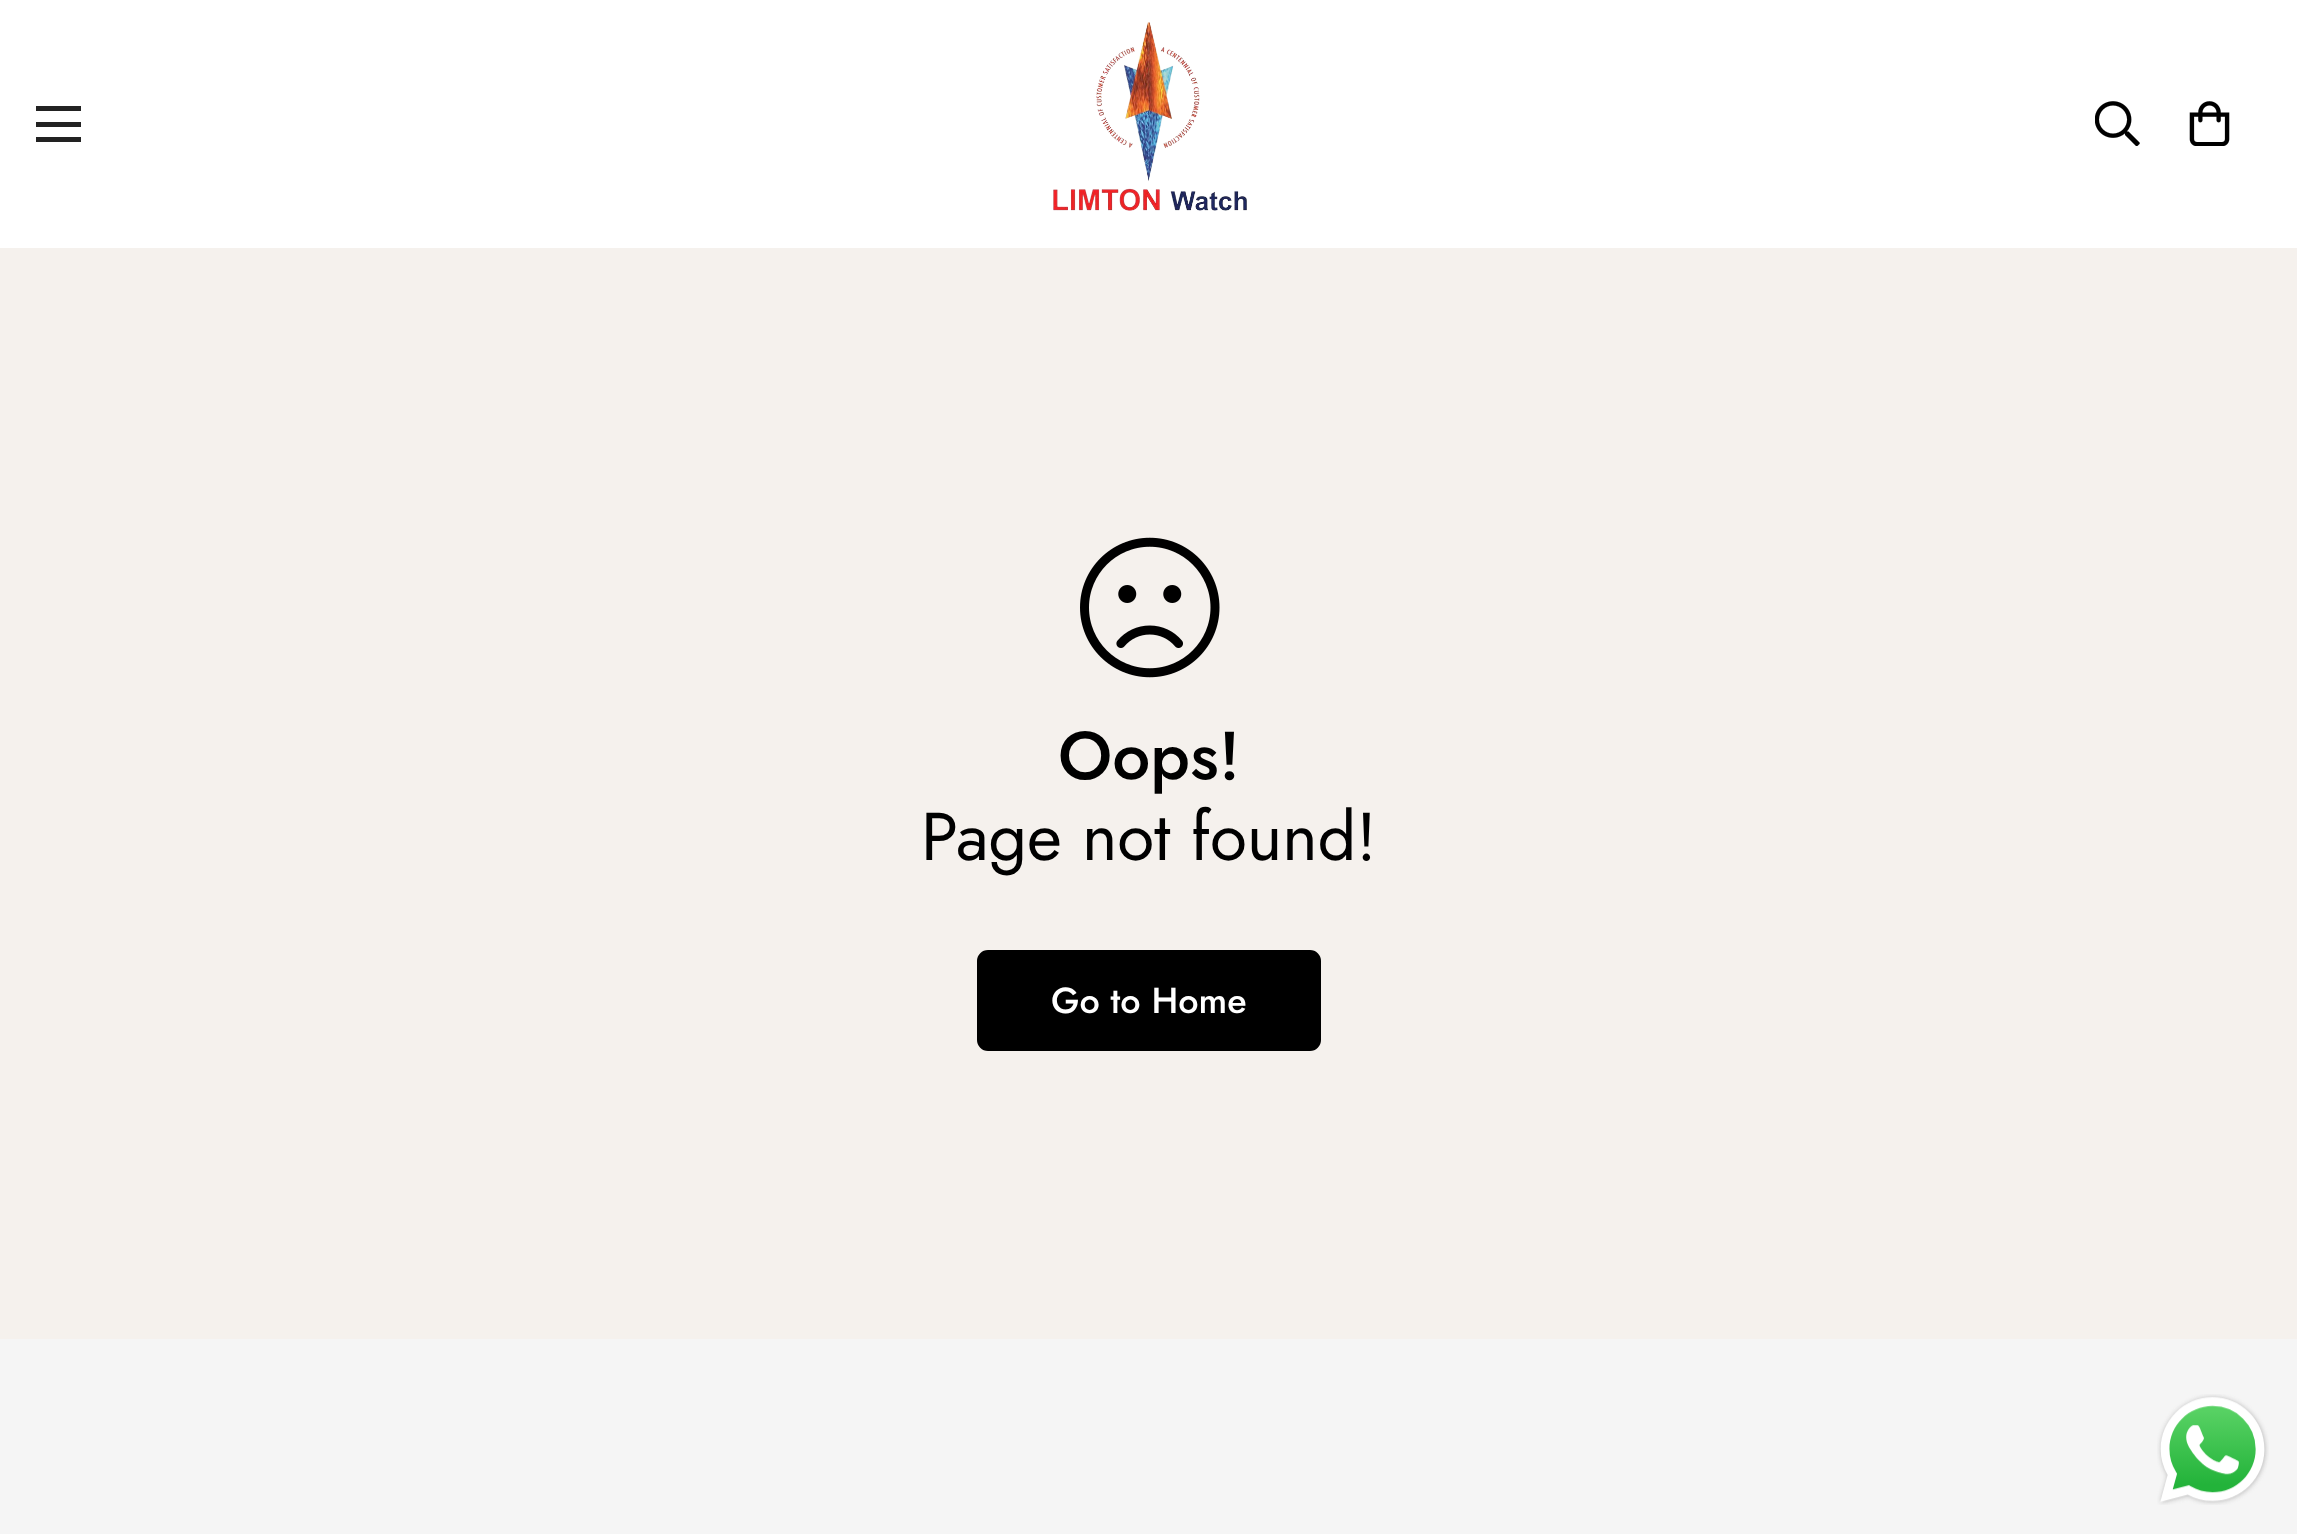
(async () => {
const canvas = document.querySelector("canvas")
canvas.width = 2297
canvas.height = 1534
const c = canvas.getContext("2d")
c.miterLimit = 4
c.fontKerning = "normal"
function T(s,x,y){c.fillText(s,x,y)}
function R(x,y,w,h){c.fillRect(x,y,w,h)}
async function I(src,x,y,w,h){const img=new Image();img.src=src;await img.decode();c.drawImage(img,x,y,w,h)}
c.fillStyle="#fff"
R(0,0,2297,1534)
c.fillStyle="#222"
R(36,122,45,5)
R(36,106,45,5)
R(36,137,45,5)
await I("1.png",1053,22,194,189)
await I("2.png",2095,101,45,45)
await I("3.png",2189,101,41,45)
c.fillStyle="#f5f1ed"
R(0,248,2297,1091)
await I("4.png",1080,537,140,141)
c.font="500 67.5px Jost"
c.fillStyle="#000"
T("Oops!",1058,779)
c.font="67.5px Jost"
T("Page not found!",921,860)
c.beginPath()
c.roundRect(978,951,342,99,10)
c.fill()
c.strokeStyle="#000"
c.lineWidth=2
c.stroke()
c.font="500 36px Jost"
c.fillStyle="#fff"
T("Go to Home",1051,1013)
c.fillStyle="#f5f5f5"
R(0,1339,2297,195)
await I("5.png",2157,1394,112,111)
})()
